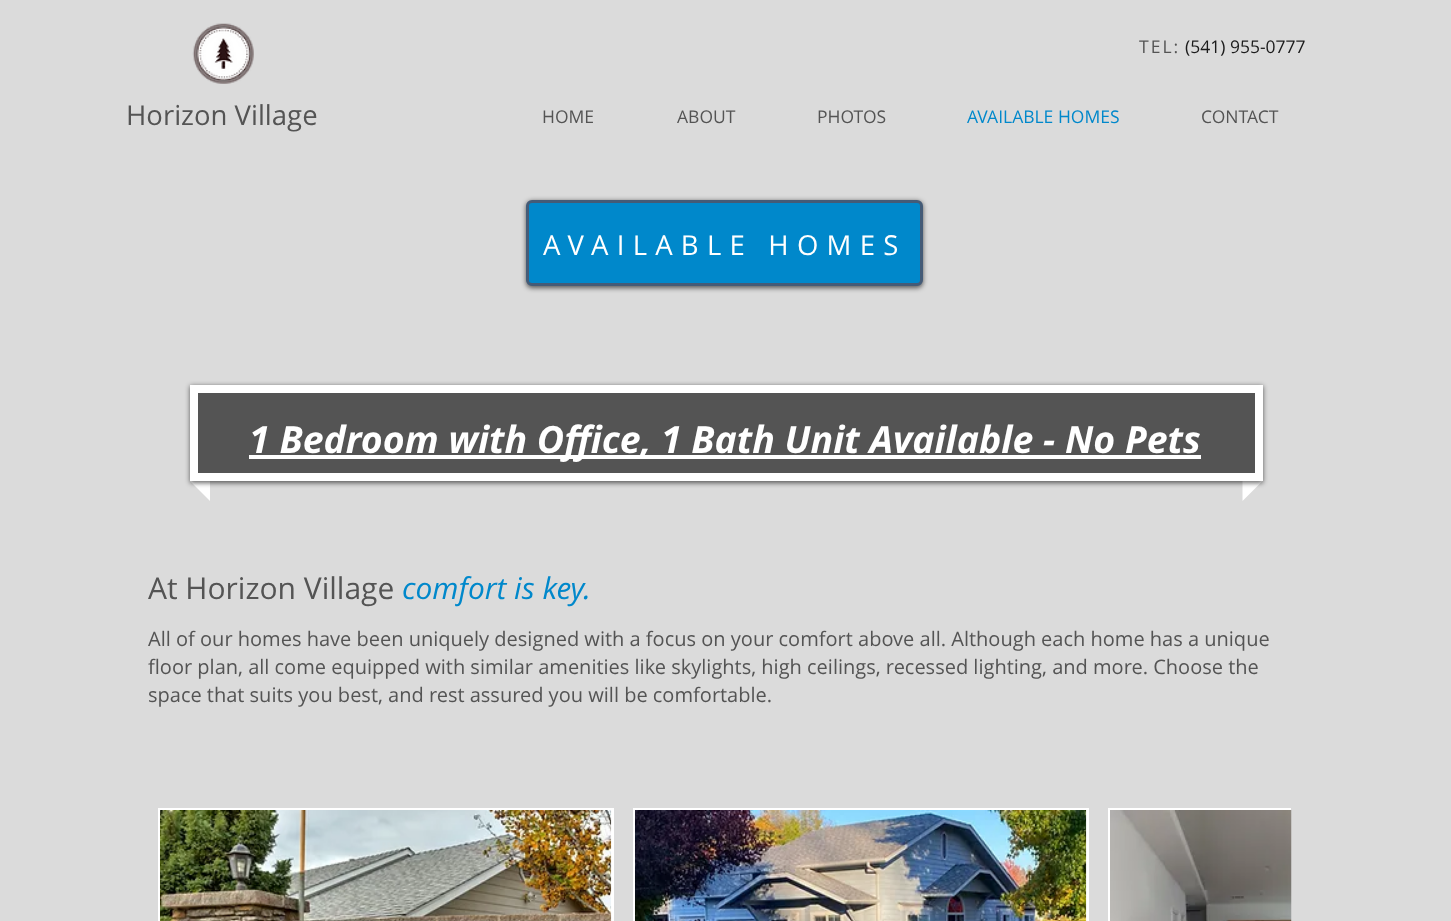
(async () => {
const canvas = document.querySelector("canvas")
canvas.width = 1451
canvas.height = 921
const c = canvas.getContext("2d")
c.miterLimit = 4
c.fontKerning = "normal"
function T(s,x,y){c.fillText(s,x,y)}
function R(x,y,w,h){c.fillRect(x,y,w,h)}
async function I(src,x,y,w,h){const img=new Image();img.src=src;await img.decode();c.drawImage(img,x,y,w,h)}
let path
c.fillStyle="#dbdbdb"
R(0,0,1451,921)
await I("1.png",192,23,62,61)
c.letterSpacing="2px"
c.font="17.5px Open Sans"
c.fillStyle="#545454"
T("TEL:",1139,53)
c.letterSpacing="0px"
c.fillStyle="#1b1b1b"
T("(541) 955-0777",1185,53)
c.font="27.5px Open Sans"
c.fillStyle="#545454"
T("Horizon Village",126,125)
c.font="17.5px Open Sans"
T("HOME",542,123)
T("ABOUT",677,123)
T("PHOTOS",817,123)
c.fillStyle="#0088cb"
T("AVAILABLE HOMES",967,123)
c.fillStyle="#545454"
T("CONTACT",1201,123)
c.fillStyle="#00000099"
c.filter="blur(2.5px)"
c.beginPath()
c.roundRect(526,201,397,87,6)
c.fill()
c.filter="none"
c.fillStyle="#0088cb"
c.beginPath()
c.roundRect(527.5,201.5,394,83,4.5)
c.fill()
c.strokeStyle="#445b77"
c.lineWidth=3
c.stroke()
c.letterSpacing="8.25px"
c.font="27.5px Open Sans"
c.fillStyle="#fff"
T("AVAILABLE HOMES",543,255)
path = new Path2D("M190 481h20v20z")
c.fill(path)
path = new Path2D("M1242.5 481h20l-20 20z")
c.fill(path)
c.fillStyle="#00000099"
c.filter="blur(2.5px)"
c.beginPath()
c.rect(190,386,1073,97)
c.fill()
c.filter="none"
c.fillStyle="#545454"
c.beginPath()
c.rect(194,389,1065,88)
c.fill()
c.strokeStyle="#fff"
c.lineWidth=8
c.stroke()
c.fillStyle="#fff"
R(249,455,952,4)
c.letterSpacing="0px"
c.font="italic bold 37.5px Open Sans"
T("1 Bedroom with Office, 1 Bath Unit Available - No Pets",249,453)
c.font="30px Open Sans"
c.fillStyle="#545454"
T("At Horizon Village",148,599)
c.font="italic 30px Open Sans"
c.fillStyle="#0088cb"
T("comfort is key.",402,599)
c.font="20px Open Sans"
c.fillStyle="#545454"
T("All of our homes have been uniquely designed with a focus on your comfort above all. Although each home has a unique",148,646)
T("floor plan, all come equipped with similar amenities like skylights, high ceilings, recessed lighting, and more. Choose the",148,674)
T("space that suits you best, and rest assured you will be comfortable.",148,702)
c.fillStyle="#fff"
R(158,808,456,113)
await I("2.png",160,810,452,111)
R(633,808,456,113)
await I("3.png",635,810,452,111)
R(1108,808,183,113)
await I("4.png",1110,810,182,111)
})()
